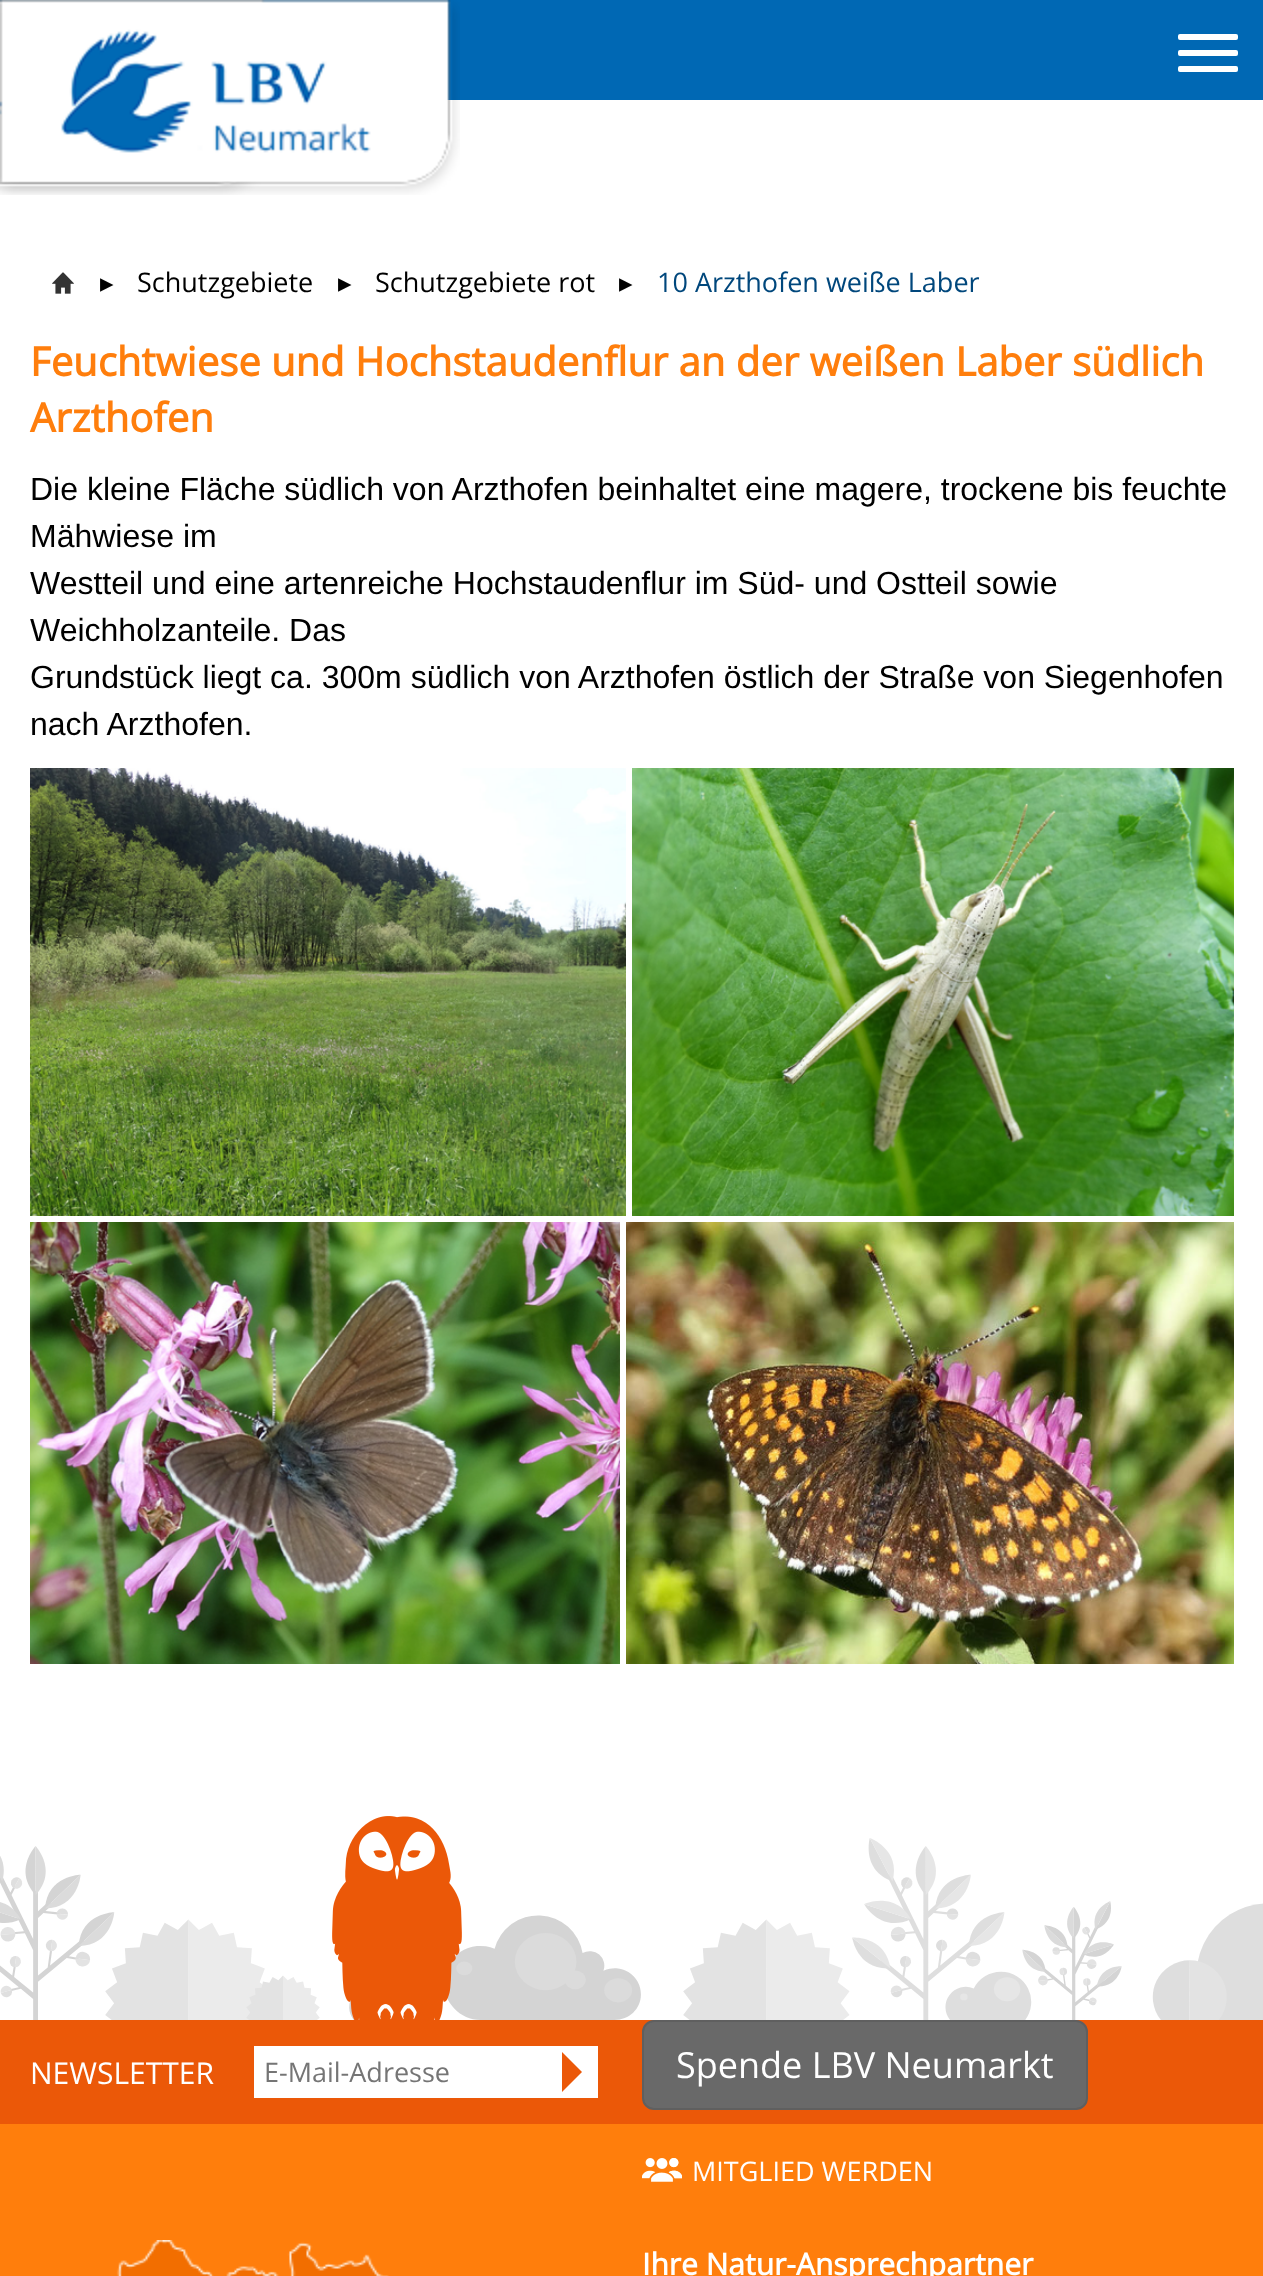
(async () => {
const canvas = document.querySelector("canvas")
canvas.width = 1263
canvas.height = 2276
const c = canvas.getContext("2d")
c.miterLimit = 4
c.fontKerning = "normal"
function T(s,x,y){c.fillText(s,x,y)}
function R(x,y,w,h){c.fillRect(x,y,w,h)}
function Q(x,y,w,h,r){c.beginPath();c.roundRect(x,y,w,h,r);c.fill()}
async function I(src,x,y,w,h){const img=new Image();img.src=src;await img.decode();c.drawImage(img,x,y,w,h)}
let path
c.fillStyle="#fff"
R(0,0,1263,2276)
c.fillStyle="#0068b4"
R(0,0,1263,100)
await I("1.png",0,0,265,195)
await I("2.png",0,0,460,195)
c.fillStyle="#fff"
Q(1178,34,60,6,2)
Q(1178,50,60,6,2)
Q(1178,66,60,6,2)
await I("3.png",52,272,22,22)
c.font="27px DejaVu Sans"
c.fillStyle="#000"
T("▸",100,292)
c.font="27px Open Sans"
T("Schutzgebiete",137,292)
c.font="27px DejaVu Sans"
T("▸",338,292)
c.font="27px Open Sans"
T("Schutzgebiete rot",375,292)
c.font="27px DejaVu Sans"
T("▸",619,292)
c.font="27px Open Sans"
c.fillStyle="#00477c"
T("10 Arzthofen weiße Laber",657,292)
c.font="bold 40px Open Sans"
c.fillStyle="#ff7e0c"
T("Feuchtwiese und Hochstaudenflur an der weißen Laber südlich",30,376)
T("Arzthofen",30,432)
c.font="32px Liberation Sans"
c.fillStyle="#000"
T("Die kleine Fläche südlich von Arzthofen beinhaltet eine magere, trockene bis feuchte",30,500)
T("Mähwiese im",30,547)
T("Westteil und eine artenreiche Hochstaudenflur im Süd- und Ostteil sowie",30,594)
T("Weichholzanteile. Das",30,641)
T("Grundstück liegt ca. 300m südlich von Arzthofen östlich der Straße von Siegenhofen",30,688)
T("nach Arzthofen.",30,735)
await I("4.png",30,768,596,448)
await I("5.png",632,768,602,448)
await I("6.png",30,1222,590,442)
await I("7.png",626,1222,608,442)
await I("9.png",0,1838,1263,182)
await I("8.png",332,1816,130,204)
c.fillStyle="#eb5808"
R(0,2020,1263,104)
c.fillStyle="#ff7e0c"
R(0,2124,1263,152)
c.font="30px Open Sans"
c.fillStyle="#fff"
T("NEWSLETTER",30,2084)
R(254,2046,344,52)
c.font="27px Open Sans"
c.fillStyle="#757575"
T("E-Mail-Adresse",264,2082)
c.fillStyle="#eb5808"
path = new Path2D("M562 2092v-40l20 20z")
c.fill(path)
c.fillStyle="#696969"
c.beginPath()
c.roundRect(643,2021,444,88,11)
c.fill()
c.strokeStyle="#5f5f5f"
c.lineWidth=2
c.stroke()
c.font="36px Open Sans"
c.fillStyle="#fff"
T("Spende LBV Neumarkt",676,2078)
await I("10.png",642,2158,40,24)
c.font="27px Open Sans"
T("MITGLIED WERDEN",692,2181)
await I("11.png",116,2240,273,36)
c.font="bold 30px Open Sans"
T("Ihre Natur-Ansprechpartner",642,2275)
})()
